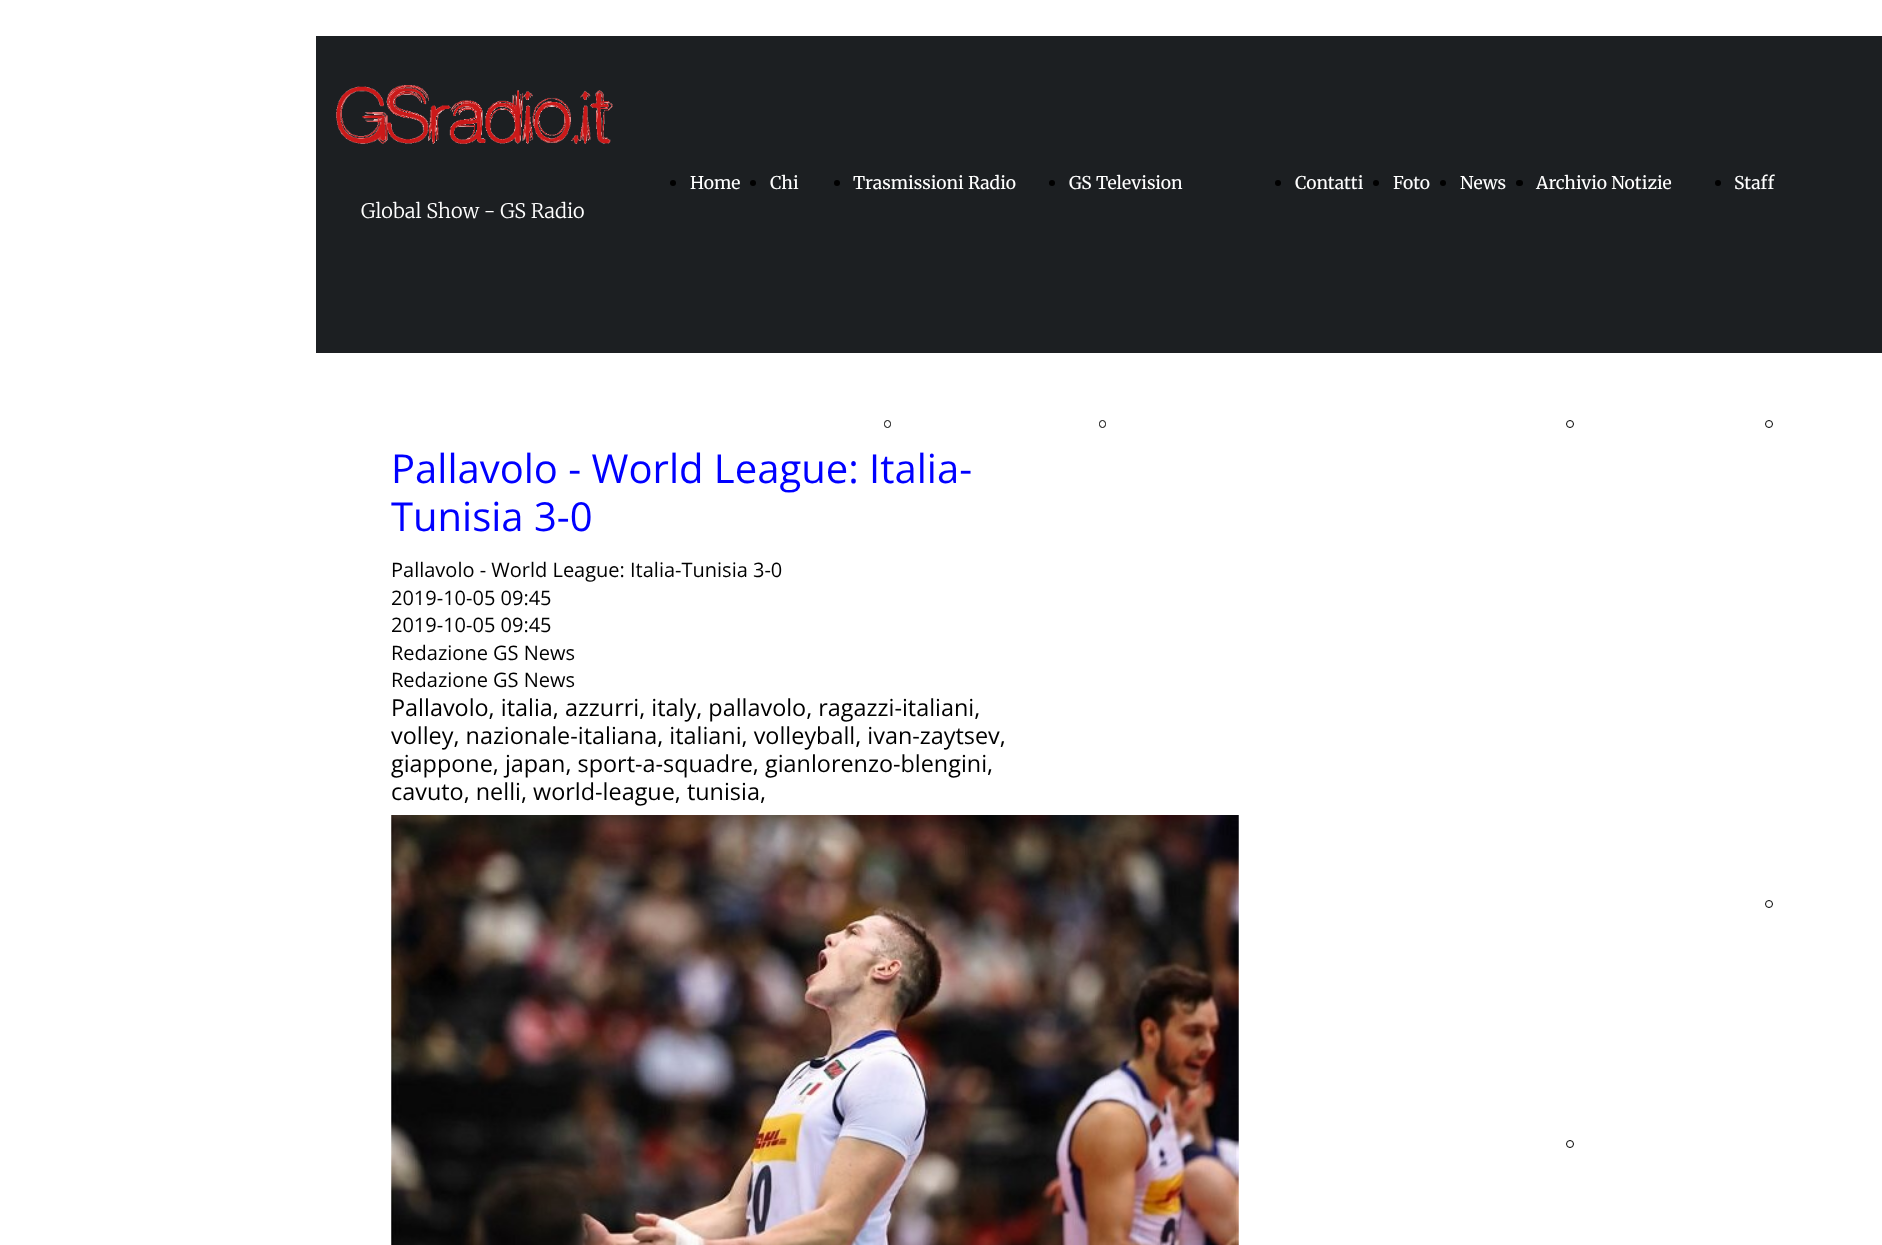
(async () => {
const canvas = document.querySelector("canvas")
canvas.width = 1882
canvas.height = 1245
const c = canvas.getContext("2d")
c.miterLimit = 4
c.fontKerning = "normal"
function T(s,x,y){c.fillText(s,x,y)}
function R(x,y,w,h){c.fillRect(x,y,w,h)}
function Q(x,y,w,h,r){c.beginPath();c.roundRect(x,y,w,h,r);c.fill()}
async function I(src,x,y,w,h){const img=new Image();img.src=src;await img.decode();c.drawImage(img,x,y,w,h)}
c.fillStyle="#fff"
R(0,0,1882,1245)
c.fillStyle="#1c1f22"
R(316,36,1566,317)
await I("1.png",336,85,277,59)
c.fillStyle="#000"
c.beginPath()
c.arc(673,183,3,0,7)
c.fill()
c.font="17.5px Merriweather"
c.fillStyle="#fff"
T("Home",690,189)
c.fillStyle="#000"
c.beginPath()
c.arc(753,183,3,0,7)
c.fill()
c.fillStyle="#fff"
T("Chi",770,189)
c.fillStyle="#000"
c.beginPath()
c.arc(837,183,3,0,7)
c.fill()
c.fillStyle="#fff"
T("Trasmissioni Radio",853,189)
c.beginPath()
c.roundRect(884.5,420.5,6,7,3)
c.strokeStyle="#000"
c.stroke()
c.fillStyle="#000"
c.beginPath()
c.arc(1052,183,3,0,7)
c.fill()
c.fillStyle="#fff"
T("GS Television",1069,189)
c.beginPath()
c.roundRect(1099.5,420.5,6,7,3)
c.stroke()
c.fillStyle="#000"
c.beginPath()
c.arc(1278,183,3,0,7)
c.fill()
c.fillStyle="#fff"
T("Contatti",1295,189)
c.fillStyle="#000"
c.beginPath()
c.arc(1376,183,3,0,7)
c.fill()
c.fillStyle="#fff"
T("Foto",1393,189)
c.fillStyle="#000"
c.beginPath()
c.arc(1443,183,3,0,7)
c.fill()
c.fillStyle="#fff"
T("News",1460,189)
c.fillStyle="#000"
Q(1516,180,7,6,3)
c.fillStyle="#fff"
T("Archivio Notizie",1536,189)
c.beginPath()
c.arc(1570,424,3.5,0,7)
c.stroke()
c.beginPath()
c.arc(1570,1144,3.5,0,7)
c.stroke()
c.fillStyle="#000"
c.beginPath()
c.arc(1718,183,3,0,7)
c.fill()
c.fillStyle="#fff"
T("Staff",1734,189)
c.beginPath()
c.arc(1769,424,3.5,0,7)
c.stroke()
c.beginPath()
c.arc(1769,904,3.5,0,7)
c.stroke()
c.font="300 20px Merriweather"
T("Global Show - GS Radio",361,218)
c.font="40px Open Sans"
c.fillStyle="#00f"
T("Pallavolo - World League: Italia-",391,483)
T("Tunisia 3-0",391,531)
c.font="20px Open Sans"
c.fillStyle="#000"
T("Pallavolo - World League: Italia-Tunisia 3-0",391,577)
T("2019-10-05 09:45",391,605)
T("2019-10-05 09:45",391,632)
T("Redazione GS News",391,660)
T("Redazione GS News",391,687)
c.font="23.4px Open Sans"
T("Pallavolo, italia, azzurri, italy, pallavolo, ragazzi-italiani,",391,716)
T("volley, nazionale-italiana, italiani, volleyball, ivan-zaytsev,",391,744)
T("giappone, japan, sport-a-squadre, gianlorenzo-blengini,",391,772)
T("cavuto, nelli, world-league, tunisia,",391,800)
await I("2.png",391,815,848,430)
})()
